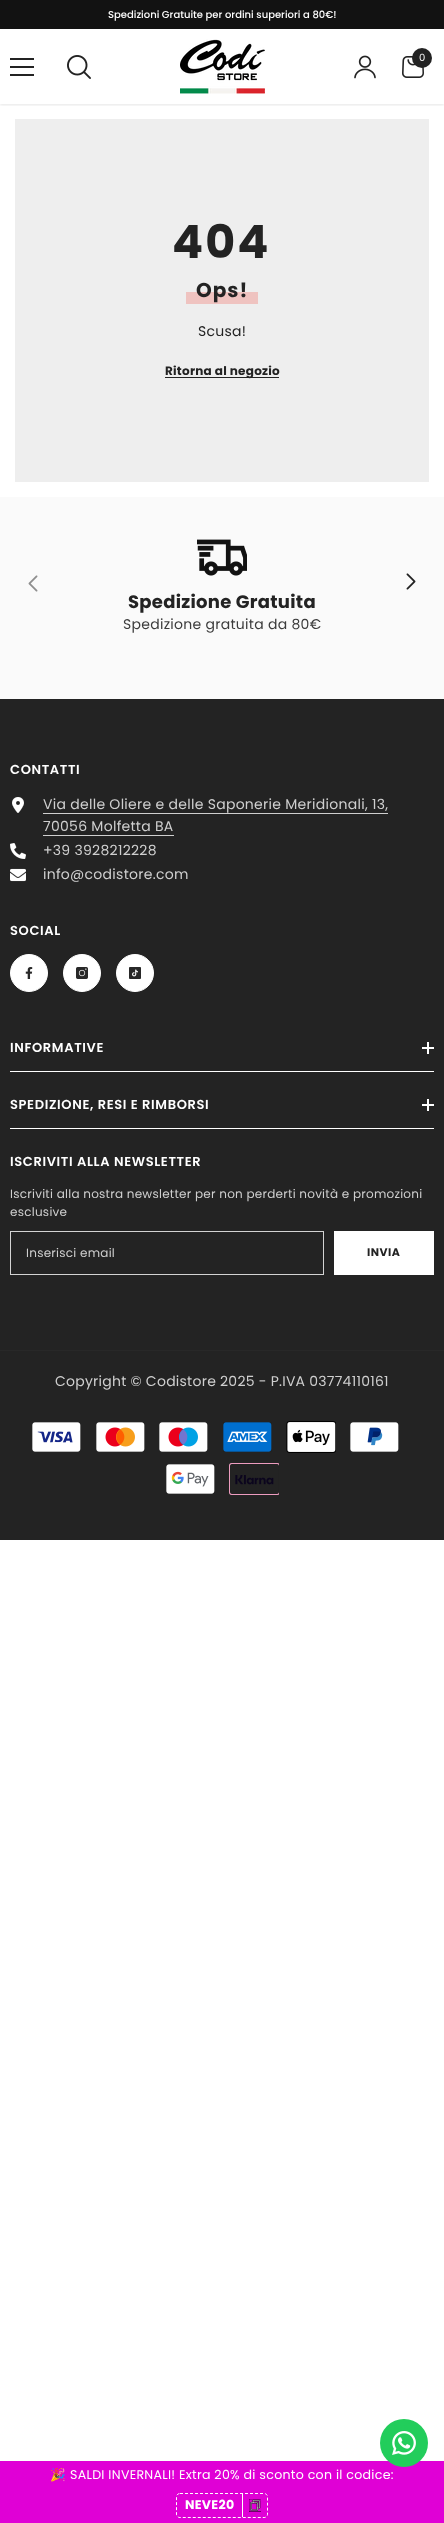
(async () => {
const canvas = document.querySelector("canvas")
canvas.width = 444
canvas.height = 2523
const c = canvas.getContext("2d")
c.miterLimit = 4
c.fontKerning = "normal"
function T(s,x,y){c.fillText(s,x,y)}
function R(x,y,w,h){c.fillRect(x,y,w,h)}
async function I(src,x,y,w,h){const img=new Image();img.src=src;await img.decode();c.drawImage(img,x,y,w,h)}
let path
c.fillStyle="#fff"
R(0,0,444,2523)
c.fillStyle="#121212"
R(0,0,444,29)
c.font="500 10px Poppins"
c.fillStyle="#fff"
T("Spedizioni Gratuite per ordini superiori a 80€!",108,18)
c.save()
c.beginPath()
c.rect(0,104,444,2)
c.clip()
c.fillStyle="#0000001a"
c.filter="blur(1.5px)"
c.beginPath()
c.rect(0,30,444,75)
c.fill()
c.filter="none"
c.restore()
c.fillStyle="#232323"
R(10,66,24,2)
R(10,58,24,2)
R(10,74,24,2)
await I("1.png",67,55,24,24)
await I("2.png",180,39,85,55)
await I("3.png",354,55,22,24)
await I("4.png",402,56,22,22)
c.beginPath()
c.arc(422,58,10,0,7)
c.fill()
c.font="10px Poppins"
c.fillStyle="#fff"
T("0",419,61)
c.fillStyle="#eee"
R(15,119,414,363)
c.letterSpacing="2px"
c.font="bold 46px Poppins"
c.fillStyle="#232323"
T("404",172,258)
c.fillStyle="#efc3c0"
R(186,292,72,12)
c.letterSpacing="1px"
c.font="bold 20px Poppins"
c.fillStyle="#232323"
T("Ops!",196,297)
c.letterSpacing="0.28px"
c.font="14px Poppins"
T("Scusa!",198,336)
R(165,377,114,1)
c.letterSpacing="0.25px"
c.font="bold 12px Poppins"
T("Ritorna al negozio",165,375)
c.fillStyle="#fafafa"
R(0,497,444,202)
await I("5.png",28,575,10,17)
await I("6.png",406,573,10,17)
await I("7.png",197,539,50,37)
c.letterSpacing="0.28px"
c.font="bold 18px Poppins"
c.fillStyle="#232323"
T("Spedizione Gratuita",128,608)
c.font="14px Poppins"
c.fillStyle="#3c3c3c"
T("Spedizione gratuita da 80€",123,629)
c.fillStyle="#232323"
R(0,699,444,651)
c.letterSpacing="0.65px"
c.font="600 13px Poppins"
c.fillStyle="#fff"
T("CONTATTI",10,774)
await I("8.png",12,797,12,16)
c.letterSpacing="0.28px"
c.font="14px Poppins"
c.fillStyle="#cfcfcf"
T("Via delle Oliere e delle Saponerie Meridionali, 13,",43,809)
R(43,813,345,1)
T("70056 Molfetta BA",43,831)
R(43,835,131,1)
await I("9.png",10,843,16,16)
T("+39 3928212228",43,855)
await I("10.png",10,868,16,14)
T("info@codistore.com",43,879)
c.letterSpacing="0.65px"
c.font="600 13px Poppins"
c.fillStyle="#fff"
T("SOCIAL",10,935)
c.beginPath()
c.arc(29,973,18.5,0,7)
c.fill()
c.strokeStyle="#fff"
c.stroke()
await I("11.png",25,967,8,12)
c.beginPath()
c.arc(82,973,18.5,0,7)
c.fill()
c.stroke()
await I("12.png",76,967,12,12)
c.beginPath()
c.arc(135,973,18.5,0,7)
c.fill()
c.stroke()
await I("13.png",129,967,12,12)
R(10,1071,424,1)
T("INFORMATIVE",10,1052)
R(427,1042,2,12)
R(422,1047,12,2)
R(10,1128,424,1)
T("SPEDIZIONE, RESI E RIMBORSI",10,1109)
R(427,1099,2,12)
R(422,1104,12,2)
T("ISCRIVITI ALLA NEWSLETTER",10,1166)
c.letterSpacing="0.25px"
c.font="12px Poppins"
c.fillStyle="#cfcfcf"
T("Iscriviti alla nostra newsletter per non perderti novità e promozioni",10,1198)
T("esclusive",10,1216)
c.strokeStyle="#d3d3d3"
c.strokeRect(10.5,1231.5,313,43)
T("Inserisci email",26,1257)
c.fillStyle="#fff"
R(334,1231,100,44)
c.letterSpacing="0.5px"
c.font="bold 11px Poppins"
c.fillStyle="#232323"
T("INVIA",367,1256)
R(0,1351,444,189)
c.fillStyle="#282828"
R(0,1350,444,1)
c.letterSpacing="0.25px"
c.font="14px Poppins"
c.fillStyle="#cfcfcf"
T("Copyright © Codistore 2025 - P.IVA 03774110161",55,1386)
await I("14.png",32,1422,49,30)
await I("15.png",96,1422,49,30)
await I("16.png",159,1422,49,30)
await I("17.png",223,1422,49,30)
await I("18.png",286,1421,50,32)
await I("19.png",350,1422,49,30)
await I("20.png",166,1464,49,30)
await I("21.png",229,1463,50,32)
c.fillStyle="#e000d6"
R(0,2461,444,62)
c.fillStyle="#22cd5b"
c.beginPath()
c.arc(404,2443,24,0,7)
c.fill()
await I("22.png",392,2431,24,24)
c.letterSpacing="0.28px"
c.font="12.6px Noto Color Emoji"
c.fillStyle="#fff"
T("🎉",50,2479)
c.font="12.6px Poppins"
T("SALDI INVERNALI! Extra 20% di sconto con il codice:",70,2479)
path = new Path2D("M180 2493.5h84c2 0 3.5 1.5 3.5 3.5v17c0 2-1.5 3.5-3.5 3.5h-84c-2 0-3.5-1.5-3.5-3.5v-17c0-2 1.5-3.5 3.5-3.5z")
c.strokeStyle="#fff"
c.setLineDash([3,2])
c.stroke(path)
c.fillStyle="#e000d6"
c.beginPath()
c.roundRect(177,2494,65,23,[4,0,0,4])
c.fill()
c.font="bold 12.6px Poppins"
c.fillStyle="#fff"
T("NEVE20",185,2509)
c.fillStyle="#e000d6"
c.beginPath()
c.roundRect(242,2494,25,23,[0,4,4,0])
c.fill()
c.fillStyle="#fff"
R(242,2494,1,23)
await I("23.png",249,2499,12,13)
})()
